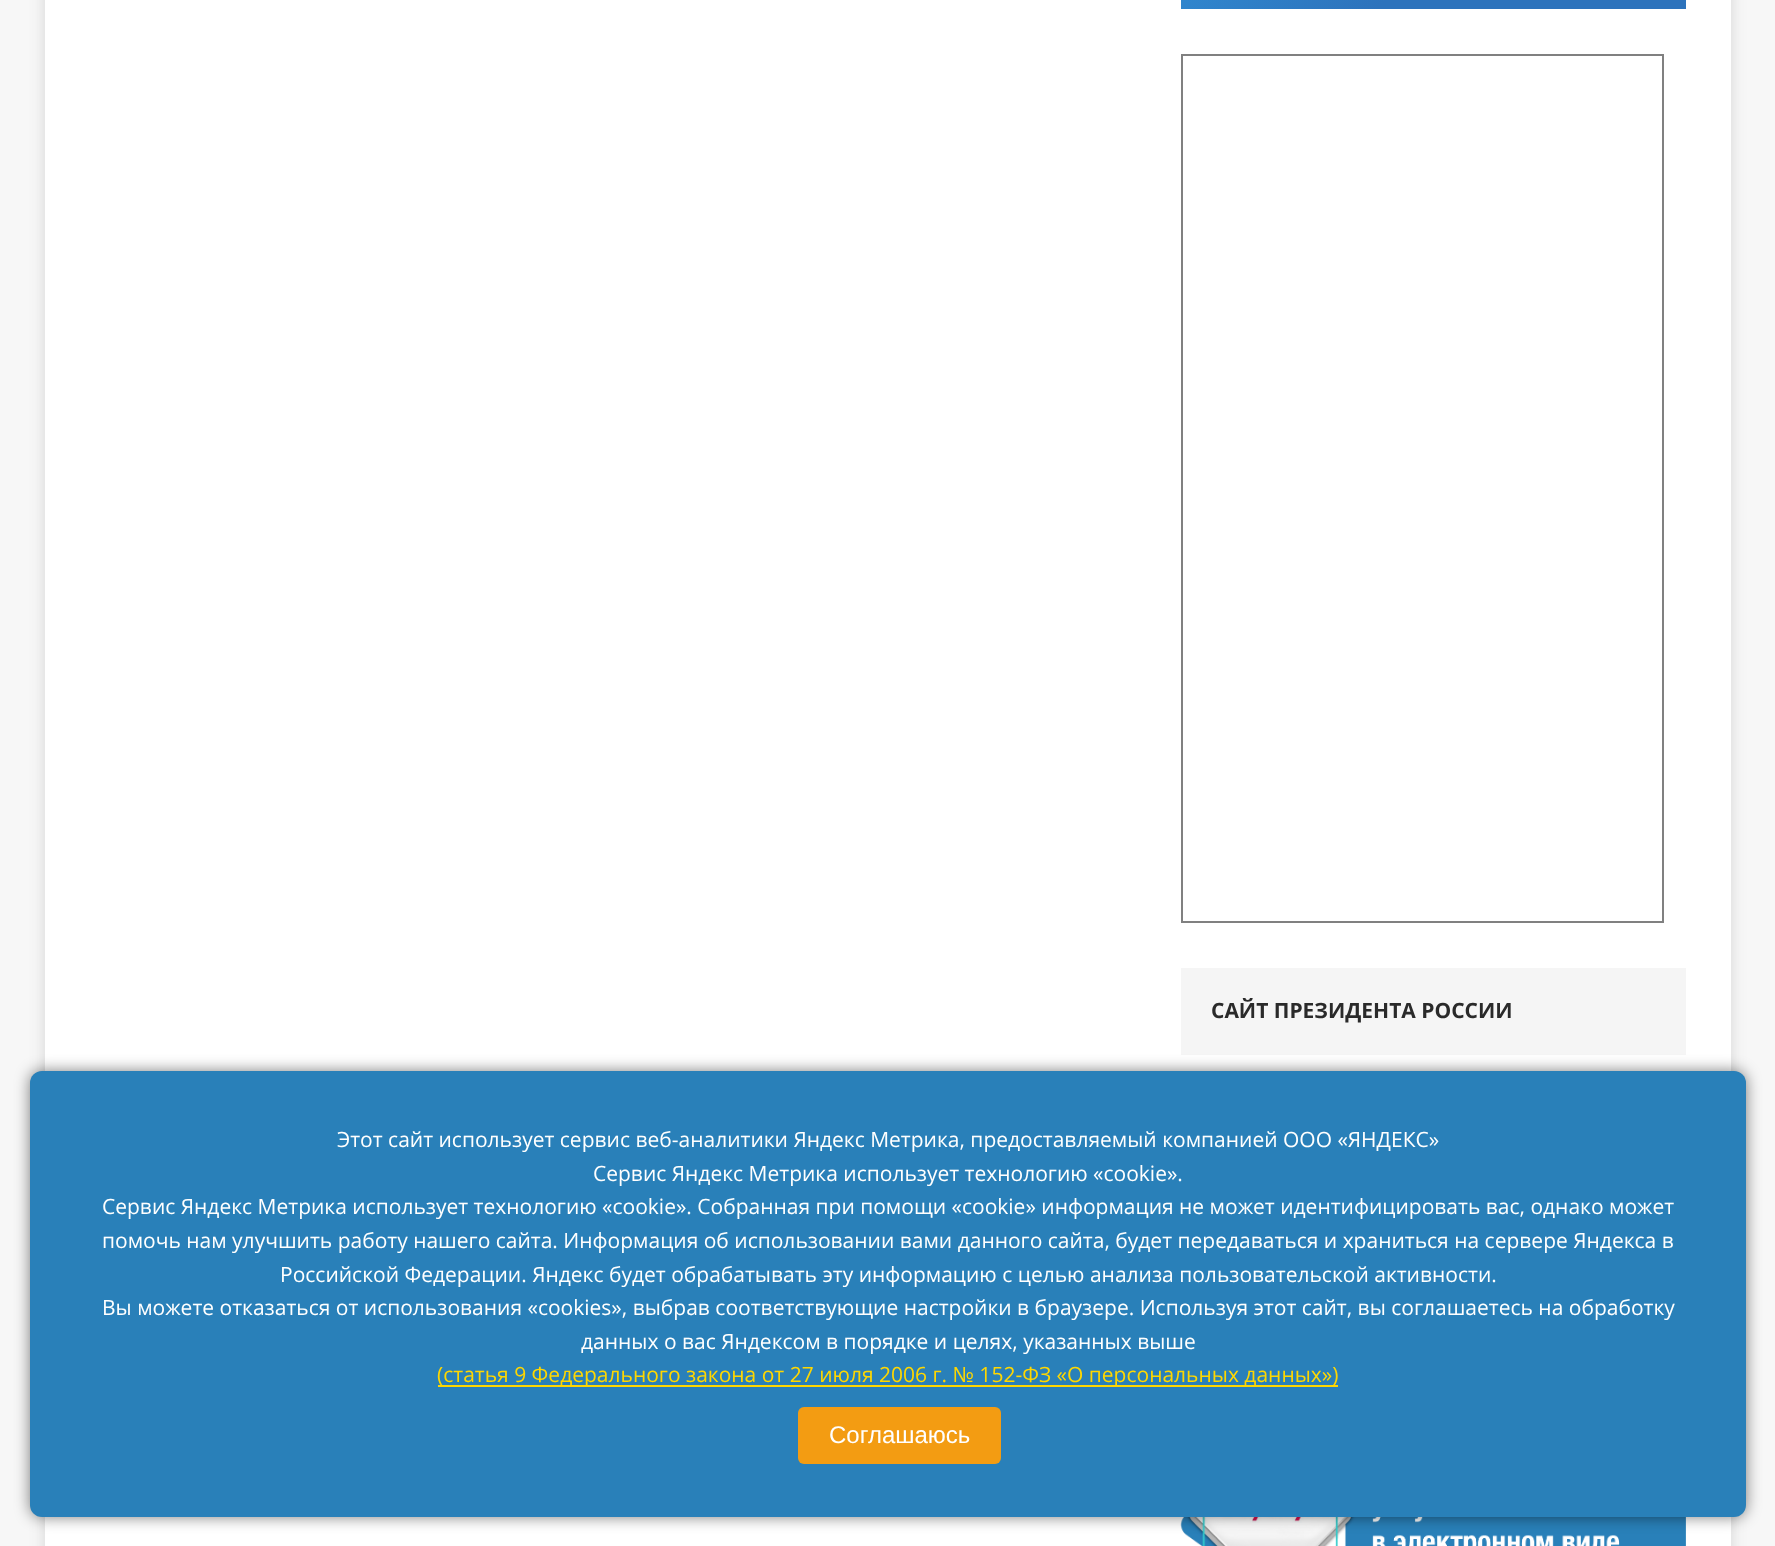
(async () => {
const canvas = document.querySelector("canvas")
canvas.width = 1775
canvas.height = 1546
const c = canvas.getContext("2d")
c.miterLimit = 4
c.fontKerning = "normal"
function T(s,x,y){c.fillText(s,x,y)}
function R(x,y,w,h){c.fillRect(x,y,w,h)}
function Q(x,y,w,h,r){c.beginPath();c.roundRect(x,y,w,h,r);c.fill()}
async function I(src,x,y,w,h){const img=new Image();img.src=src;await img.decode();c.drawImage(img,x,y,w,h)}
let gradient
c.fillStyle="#f7f7f7"
R(0,0,1775,1546)
c.fillStyle="#3232322b"
c.filter="blur(7.5px)"
c.beginPath()
c.rect(45,-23,1686,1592)
c.fill()
c.filter="none"
c.fillStyle="#fff"
R(45,0,1686,1546)
gradient = c.createLinearGradient(1107,-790,1759,-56)
gradient.addColorStop(.26,"#38bafe")
gradient.addColorStop(.79,"#2d73bc")
c.fillStyle = gradient
R(1181,0,505,9)
c.strokeStyle="#808080"
c.lineWidth=2
c.strokeRect(1182,55,481,867)
c.fillStyle="#f5f5f5"
R(1181,968,505,87)
c.font="bold 21px Open Sans"
c.fillStyle="#2a2a2a"
T("САЙТ ПРЕЗИДЕНТА РОССИИ",1211,1018)
await I("1.png",1180,1517,506,29)
c.fillStyle="#00000080"
c.filter="blur(7.5px)"
c.beginPath()
c.roundRect(30,1071,1716,446,12)
c.fill()
c.filter="none"
c.fillStyle="#2980b9"
Q(30,1071,1716,446,12)
c.font="21px Open Sans"
c.fillStyle="#fff"
T("Этот сайт использует сервис веб-аналитики Яндекс Метрика, предоставляемый компанией ООО «ЯНДЕКС»",337,1147)
T("Сервис Яндекс Метрика использует технологию «cookie».",593,1181)
T("Сервис Яндекс Метрика использует технологию «cookie». Собранная при помощи «cookie» информация не может идентифицировать вас, однако может",102,1214)
T("помочь нам улучшить работу нашего сайта. Информация об использовании вами данного сайта, будет передаваться и храниться на сервере Яндекса в",102,1248)
T("Российской Федерации. Яндекс будет обрабатывать эту информацию с целью анализа пользовательской активности.",280,1282)
T("Вы можете отказаться от использования «cookies», выбрав соответствующие настройки в браузере. Используя этот сайт, вы соглашаетесь на обработку",102,1315)
T("данных о вас Яндексом в порядке и целях, указанных выше",581,1349)
c.fillStyle="#ffd700"
R(438,1385,900,2)
T("(статья 9 Федерального закона от 27 июля 2006 г. № 152-ФЗ «О персональных данных»)",437,1382)
c.fillStyle="#f39c12"
Q(798,1407,203,57,6)
c.font="24px Liberation Sans"
c.fillStyle="#fff"
T("Соглашаюсь",829,1443)
})()
